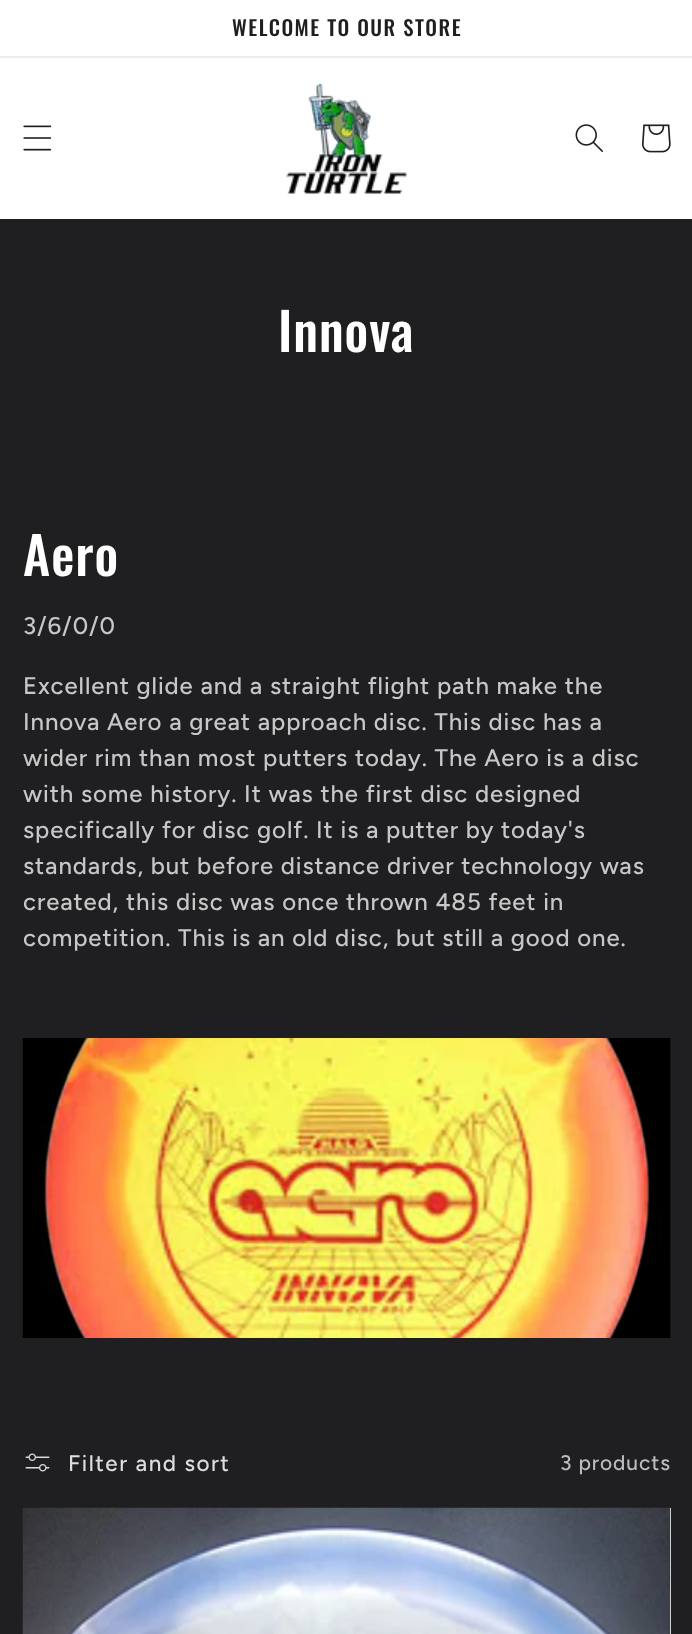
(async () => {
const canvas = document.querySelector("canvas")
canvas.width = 692
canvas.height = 1634
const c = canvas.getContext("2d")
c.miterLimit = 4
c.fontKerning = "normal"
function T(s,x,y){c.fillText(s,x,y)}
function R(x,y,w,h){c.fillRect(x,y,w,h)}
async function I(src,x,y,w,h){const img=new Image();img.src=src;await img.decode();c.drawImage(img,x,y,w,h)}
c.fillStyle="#1f1f21"
R(0,0,692,1634)
c.fillStyle="#fff"
R(0,0,692,56)
c.fillStyle="#ededed"
R(0,56,692,2)
c.letterSpacing="1.5px"
c.font="500 20.75px Oswald"
c.fillStyle="#1f1f21"
T("WELCOME TO OUR STORE",232,36)
c.fillStyle="#fff"
R(0,58,692,161)
await I("1.png",23,125,29,26)
await I("2.png",286,84,121,110)
await I("3.png",575,124,28,28)
await I("4.png",642,124,29,29)
c.letterSpacing="1px"
c.font="500 52px Oswald"
T("Innova",278,352)
T("Aero",23,576)
c.letterSpacing="0.9px"
c.font="500 24px Figtree"
c.fillStyle="#c7c7c8"
T("3/6/0/0",23,634)
T("Excellent glide and a straight flight path make the",23,694)
T("Innova Aero a great approach disc. This disc has a",23,730)
T("wider rim than most putters today. The Aero is a disc",23,766)
T("with some history. It was the first disc designed",23,802)
T("specifically for disc golf. It is a putter by today's",23,838)
T("standards, but before distance driver technology was",23,874)
T("created, this disc was once thrown 485 feet in",23,910)
T("competition. This is an old disc, but still a good one.",23,946)
await I("5.png",22,1038,649,300)
await I("6.png",25,1453,25,19)
c.letterSpacing="1.5px"
c.font="500 22.5px Figtree"
c.fillStyle="#ddddde"
T("Filter and sort",68,1471)
c.letterSpacing="0.9px"
c.font="500 21px Figtree"
c.fillStyle="#bcbcbc"
T("3 products",560,1470)
c.fillStyle="#fff"
R(670,1508,1,126)
await I("7.png",22,1507,649,127)
})()
